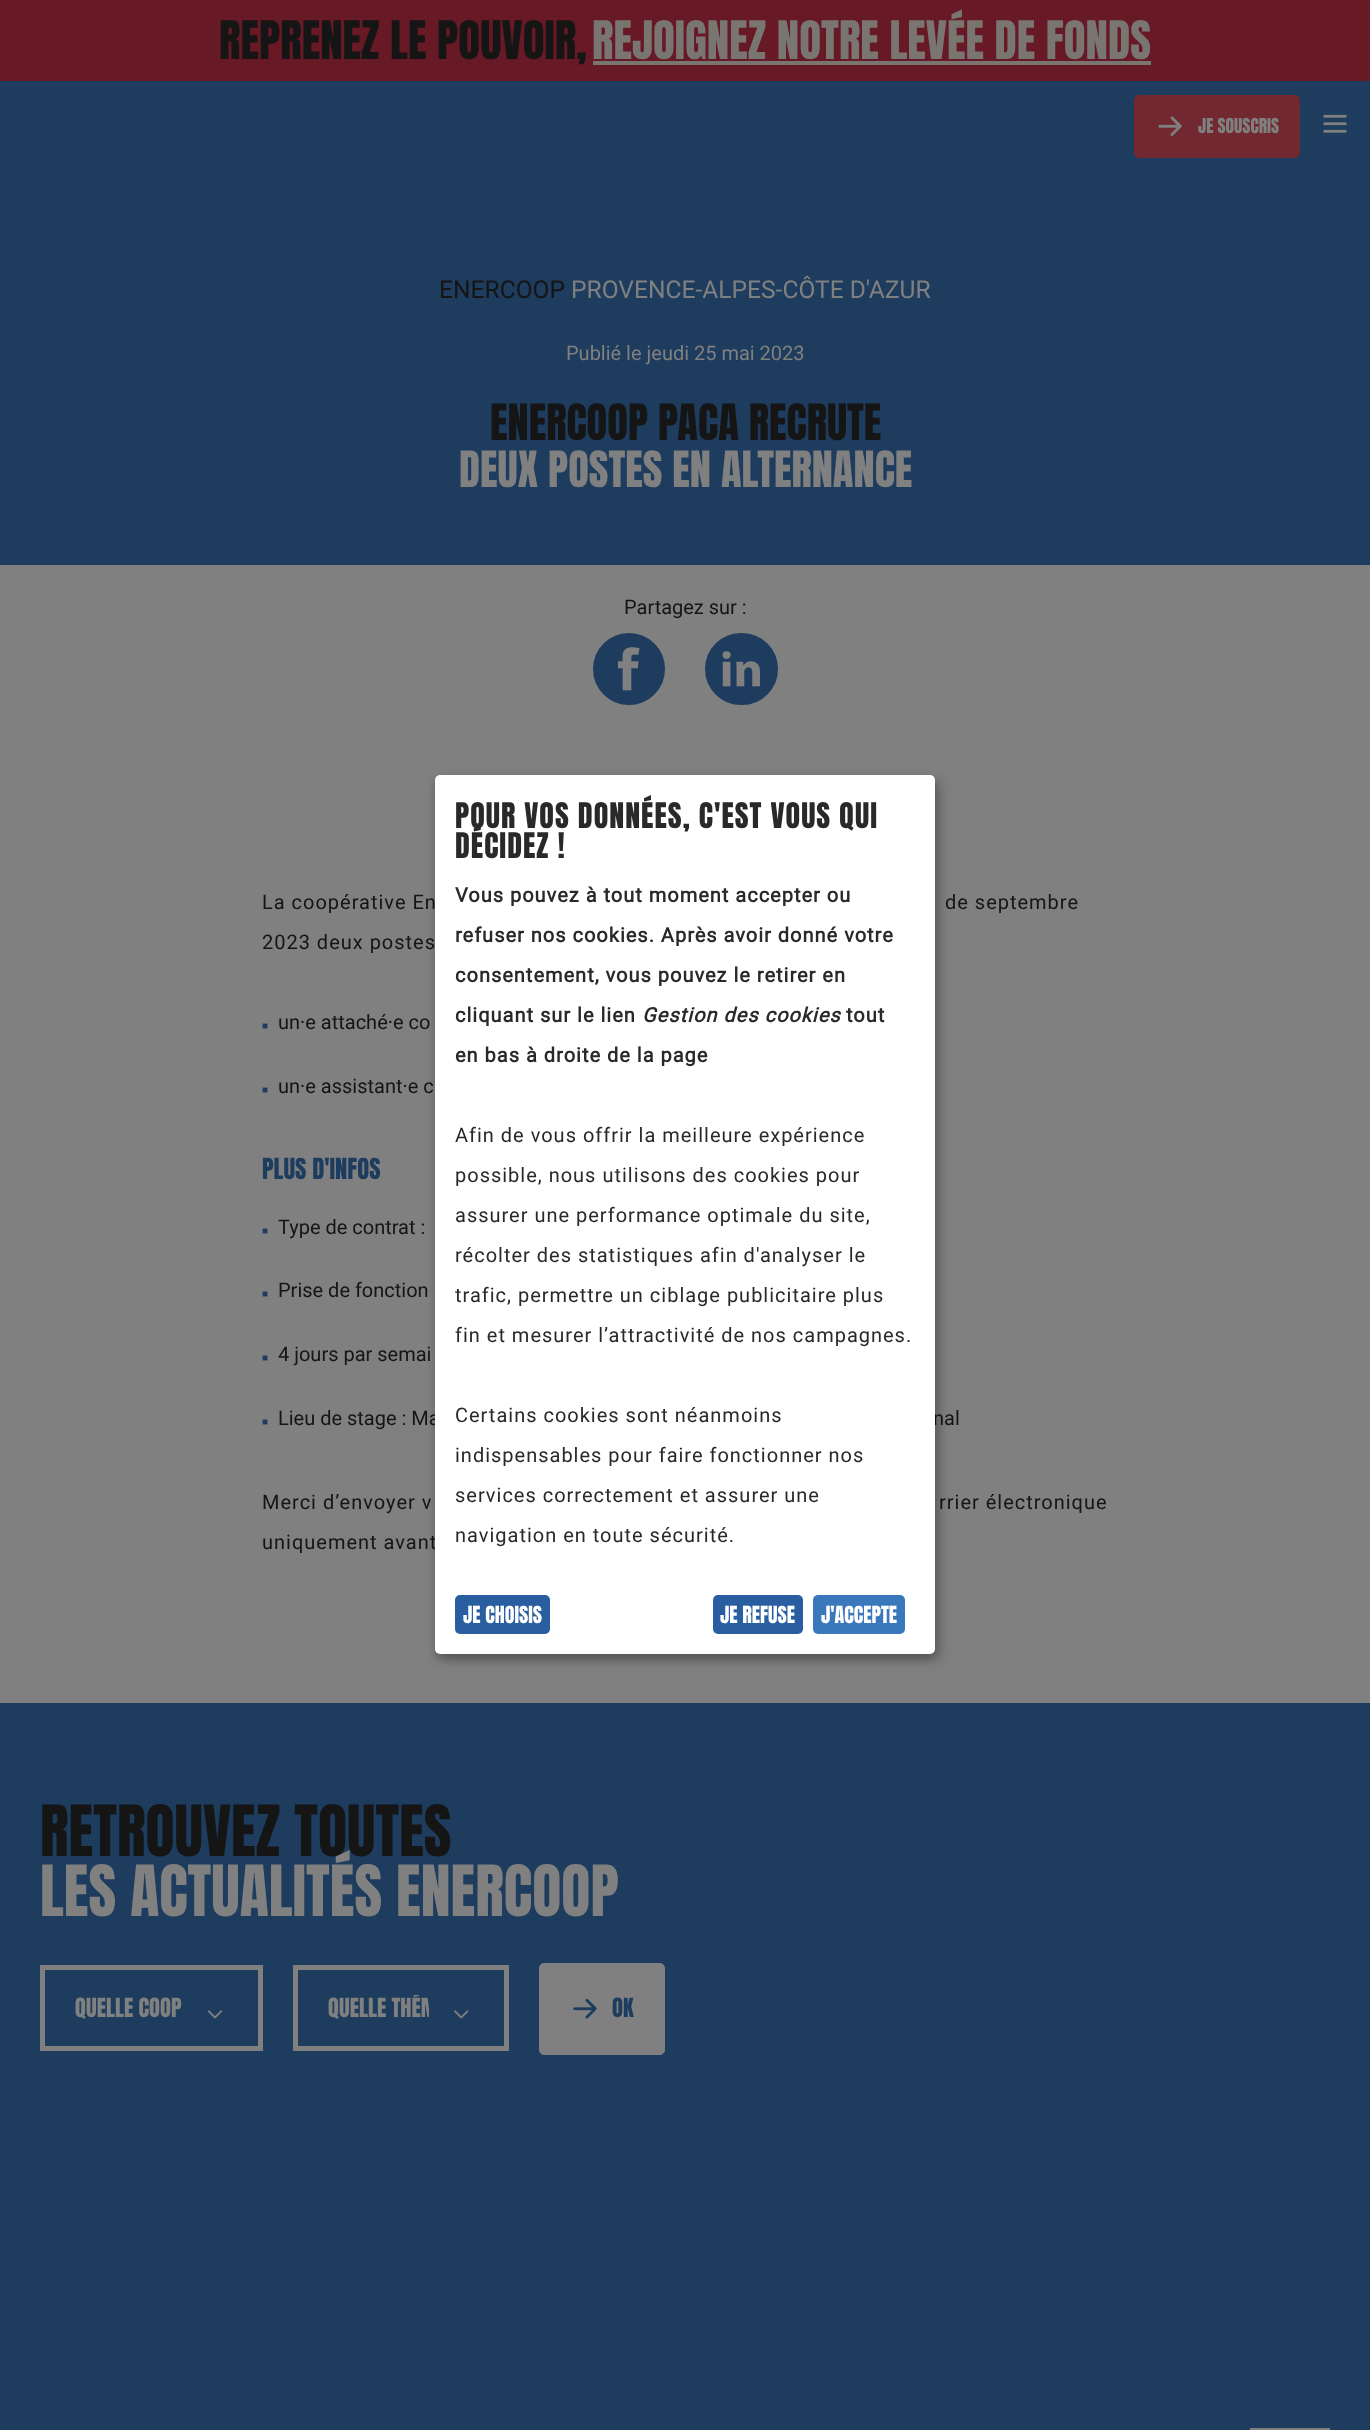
(async () => {
const canvas = document.querySelector("canvas")
canvas.width = 1370
canvas.height = 2430
const c = canvas.getContext("2d")
c.miterLimit = 4
c.fontKerning = "normal"
function T(s,x,y){c.fillText(s,x,y)}
function R(x,y,w,h){c.fillRect(x,y,w,h)}
function Q(x,y,w,h,r){c.beginPath();c.roundRect(x,y,w,h,r);c.fill()}
async function I(src,x,y,w,h){const img=new Image();img.src=src;await img.decode();c.drawImage(img,x,y,w,h)}
c.fillStyle="#1d3c5e"
R(0,0,1370,2430)
c.fillStyle="#671925"
R(0,0,1370,81)
c.font="45px Anton"
c.fillStyle="#151515"
T("REPRENEZ LE POUVOIR,",219,59)
c.fillStyle="#797672"
T("REJOIGNEZ NOTRE LEVÉE DE FONDS",592,59)
R(593,61,558,4)
c.fillStyle="#712830"
c.beginPath()
c.roundRect(1134.5,95.5,165,62,4.5)
c.fill()
c.strokeStyle="#712830"
c.stroke()
await I("1.png",1158,116,24,21)
c.font="17.5px Anton"
c.fillStyle="#808080"
T("JE SOUSCRIS",1198,133)
await I("2.png",1323,114,24,19)
c.font="24.6px Roboto"
c.fillStyle="#151515"
T("ENERCOOP",439,298)
c.fillStyle="#808080"
T("PROVENCE-ALPES-CÔTE D'AZUR",571,298)
c.font="20px Roboto"
T("Publié le jeudi 25 mai 2023",566,360)
c.font="42.5px Anton"
c.fillStyle="#151515"
T("ENERCOOP PACA RECRUTE",490,440)
c.fillStyle="#808080"
T("DEUX POSTES EN ALTERNANCE",459,487)
R(0,565,1370,1138)
c.font="20px Roboto"
c.fillStyle="#151515"
T("Partagez sur :",624,614)
c.fillStyle="#1d3c5e"
c.beginPath()
c.arc(629,669,33,0,7)
c.fill()
c.strokeStyle="#1d3c5e"
c.lineWidth=6
c.stroke()
await I("3.png",617,647,23,44)
c.beginPath()
c.roundRect(708,636,67,66,33)
c.fill()
c.stroke()
await I("4.png",722,651,38,36)
c.letterSpacing="1px"
c.fillStyle="#151515"
T("La coopérative En",262,909)
T("de septembre",945,909)
T("2023 deux postes",262,949)
c.letterSpacing="0px"
c.font="10px Liberation Sans"
c.fillStyle="#1d3c5e"
T("■",262,1029)
c.font="20px Roboto"
c.fillStyle="#151515"
T("un·e attaché·e co",278,1029)
c.font="10px Liberation Sans"
c.fillStyle="#1d3c5e"
T("■",262,1093)
c.font="20px Roboto"
c.fillStyle="#151515"
T("un·e assistant·e c",278,1093)
c.font="24.6px Anton"
c.fillStyle="#1d3c5e"
T("PLUS D'INFOS",262,1179)
c.font="10px Liberation Sans"
T("■",262,1234)
c.font="20px Roboto"
c.fillStyle="#151515"
T("Type de contrat :",278,1234)
c.font="10px Liberation Sans"
c.fillStyle="#1d3c5e"
T("■",262,1297)
c.font="20px Roboto"
c.fillStyle="#151515"
T("Prise de fonction",278,1297)
c.font="10px Liberation Sans"
c.fillStyle="#1d3c5e"
T("■",262,1361)
c.font="20px Roboto"
c.fillStyle="#151515"
T("4 jours par semai",278,1361)
c.font="10px Liberation Sans"
c.fillStyle="#1d3c5e"
T("■",262,1425)
c.font="20px Roboto"
c.fillStyle="#151515"
T("Lieu de stage : Ma",278,1425)
T("nal",933,1425)
c.letterSpacing="1px"
T("Merci d’envoyer v",262,1509)
T("rrier électronique",939,1509)
T("uniquement avant",262,1549)
c.letterSpacing="0px"
c.font="59.9px Anton"
T("RETROUVEZ TOUTES",40,1856)
c.fillStyle="#808080"
T("LES ACTUALITÉS ENERCOOP",40,1916)
c.strokeStyle="#808080"
c.lineWidth=5
c.strokeRect(42.5,1967.5,218,81)
c.font="22.5px Anton"
T("QUELLE COOP",75,2017)
await I("5.png",207,2010,16,9)
c.strokeRect(295.5,1967.5,211,81)
c.save()
c.beginPath()
c.rect(328,1995,101,26)
c.clip()
T("QUELLE THÉM",328,2017)
c.restore()
await I("6.png",454,2010,15,9)
c.beginPath()
c.roundRect(539.5,1963.5,125,91,4.5)
c.fill()
c.lineWidth=1
c.stroke()
await I("7.png",573,1998,24,21)
c.fillStyle="#1d3c5e"
T("OK",612,2017)
c.fillStyle="#808080"
R(1250,2428,80,2)
c.fillStyle="#00000030"
c.filter="blur(6px)"
c.beginPath()
c.roundRect(441,781,500,879,5)
c.fill()
c.filter="none"
c.fillStyle="#00000033"
c.filter="blur(4px)"
c.beginPath()
c.roundRect(435,780,500,879,5)
c.fill()
c.filter="none"
c.fillStyle="#fff"
Q(435,775,500,879,5)
c.letterSpacing="1px"
c.font="30px Anton"
c.fillStyle="#292929"
T("POUR VOS DONNÉES, C'EST VOUS QUI",455,828)
T("DÉCIDEZ !",455,858)
c.font="bold 20px Roboto"
T("Vous pouvez à tout moment accepter ou",455,902)
T("refuser nos cookies. Après avoir donné votre",455,942)
T("consentement, vous pouvez le retirer en",455,982)
T("cliquant sur le lien",455,1022)
c.font="italic bold 20px Roboto"
T("Gestion des cookies",642,1022)
c.font="bold 20px Roboto"
T("tout",846,1022)
T("en bas à droite de la page",455,1062)
c.font="20px Roboto"
T("Afin de vous offrir la meilleure expérience",455,1142)
T("possible, nous utilisons des cookies pour",455,1182)
T("assurer une performance optimale du site,",455,1222)
T("récolter des statistiques afin d'analyser le",455,1262)
T("trafic, permettre un ciblage publicitaire plus",455,1302)
T("fin et mesurer l’attractivité de nos campagnes.",455,1342)
T("Certains cookies sont néanmoins",455,1422)
T("indispensables pour faire fonctionner nos",455,1462)
T("services correctement et assurer une",455,1502)
T("navigation en toute sécurité.",455,1542)
c.fillStyle="#295fa0"
Q(455,1595,95,39,5)
c.letterSpacing="0px"
c.font="20px Anton"
c.fillStyle="#fff"
T("JE CHOISIS",463,1623)
c.fillStyle="#295fa0"
Q(713,1595,90,39,5)
c.fillStyle="#fff"
T("JE REFUSE",720,1623)
c.fillStyle="#3978bb"
Q(813,1595,92,39,5)
c.fillStyle="#fff"
T("J'ACCEPTE",821,1623)
})()
